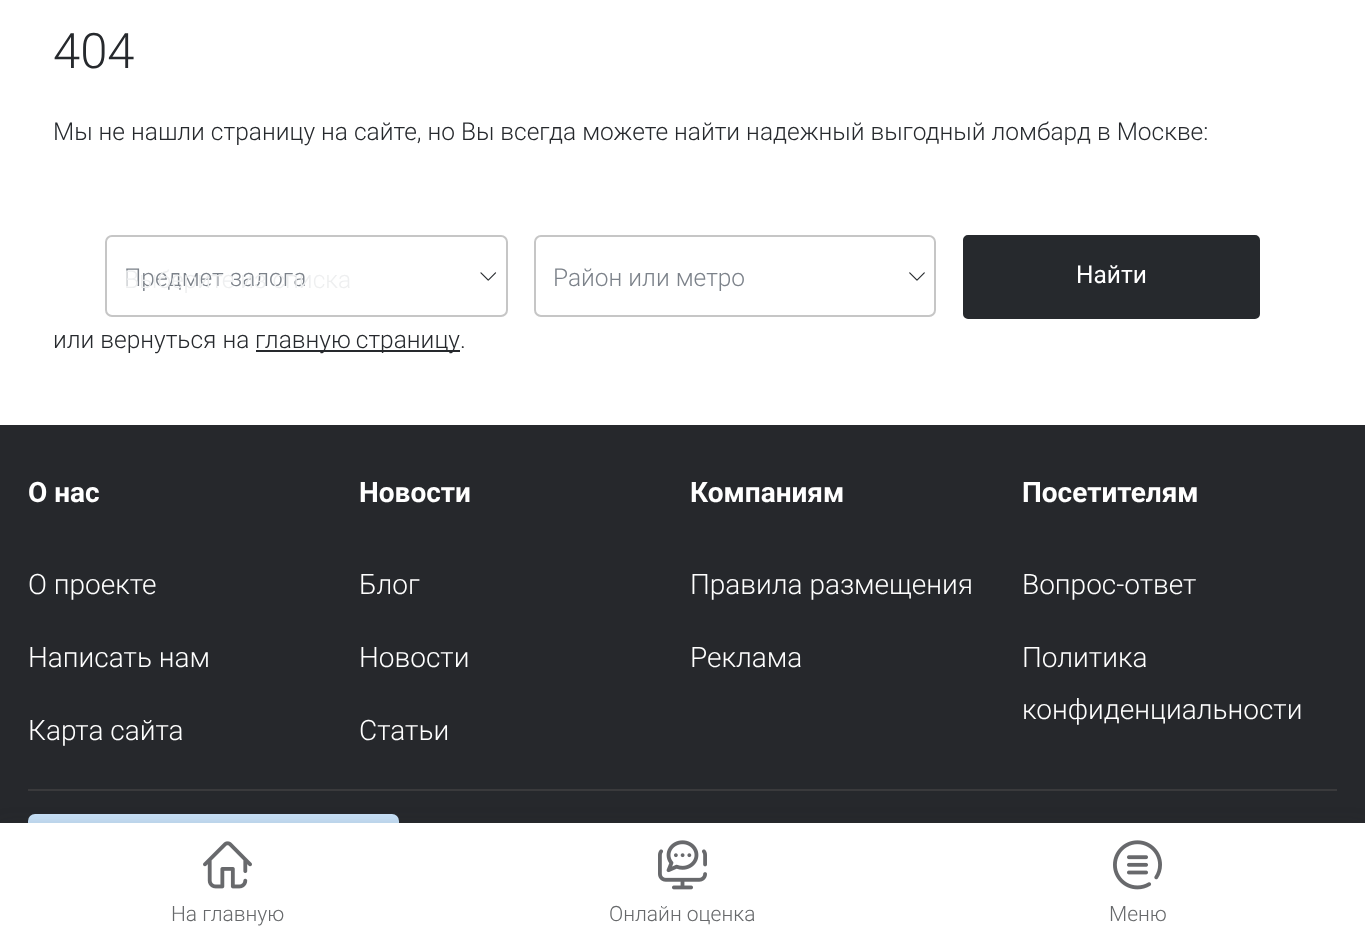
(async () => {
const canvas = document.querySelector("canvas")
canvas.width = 1365
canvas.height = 940
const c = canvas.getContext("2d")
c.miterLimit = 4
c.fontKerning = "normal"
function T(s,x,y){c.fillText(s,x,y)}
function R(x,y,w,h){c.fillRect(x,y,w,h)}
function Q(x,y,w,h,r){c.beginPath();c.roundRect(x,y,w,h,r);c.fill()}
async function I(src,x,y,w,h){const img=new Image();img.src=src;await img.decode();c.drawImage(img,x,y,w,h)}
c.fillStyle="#fff"
R(0,0,1365,940)
c.font="300 49px Roboto"
c.fillStyle="#26292d"
T("404",53,68)
c.font="300 24.5px Roboto"
T("Мы не нашли страницу на сайте, но Вы всегда можете найти надежный выгодный ломбард в Москве:",53,140)
c.beginPath()
c.roundRect(106,236,401,80,6)
c.strokeStyle="#c6c6c6"
c.lineWidth=2
c.stroke()
c.fillStyle="#7c828a"
T("Предмет залога",124,286)
c.fillStyle="#eeeff0"
T("Выберите из списка",124,288)
await I("1.png",480,272,17,9)
c.beginPath()
c.roundRect(535,236,400,80,6)
c.stroke()
c.fillStyle="#7c828a"
T("Район или метро",553,286)
await I("2.png",909,272,16,9)
c.fillStyle="#26292d"
c.beginPath()
c.roundRect(964,236,295,82,4)
c.fill()
c.strokeStyle="#26292d"
c.stroke()
c.font="24.5px Roboto"
c.fillStyle="#fff"
T("Найти",1076,283)
c.font="300 24.5px Roboto"
c.fillStyle="#26292d"
T("или вернуться на",53,348)
R(256,350,204,2)
c.wordSpacing="-1px"
T("главную страницу",255,348)
c.wordSpacing="0px"
T(".",460,348)
c.fillStyle="#26282c"
R(0,425,1365,398)
c.fillStyle="#3a3a3c"
R(28,789,1309,2)
c.font="bold 28px Roboto"
c.fillStyle="#fff"
T("О нас",28,502)
c.font="300 28px Roboto"
T("О проекте",28,594)
T("Написать нам",28,667)
T("Карта сайта",28,740)
c.font="bold 28px Roboto"
T("Новости",359,502)
c.font="300 28px Roboto"
T("Блог",359,594)
T("Новости",359,667)
T("Статьи",359,740)
c.font="bold 28px Roboto"
T("Компаниям",690,502)
c.font="300 28px Roboto"
T("Правила размещения",690,594)
T("Реклама",690,667)
c.font="bold 28px Roboto"
T("Посетителям",1022,502)
c.font="300 28px Roboto"
T("Вопрос-ответ",1022,594)
T("Политика",1022,667)
T("конфиденциальности",1022,719)
c.fillStyle="#c8e2f9"
Q(28,814,371,51,7)
c.fillStyle="#26282c33"
c.filter="blur(9px)"
c.beginPath()
c.rect(0,826,1365,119)
c.fill()
c.filter="none"
c.fillStyle="#fff"
R(0,823,1365,117)
await I("3.png",203,841,49,48)
c.font="300 21px Roboto"
c.fillStyle="#67696b"
T("На главную",171,921)
await I("4.png",658,840,49,50)
T("Онлайн оценка",609,921)
await I("5.png",1113,840,49,50)
T("Меню",1109,921)
})()
